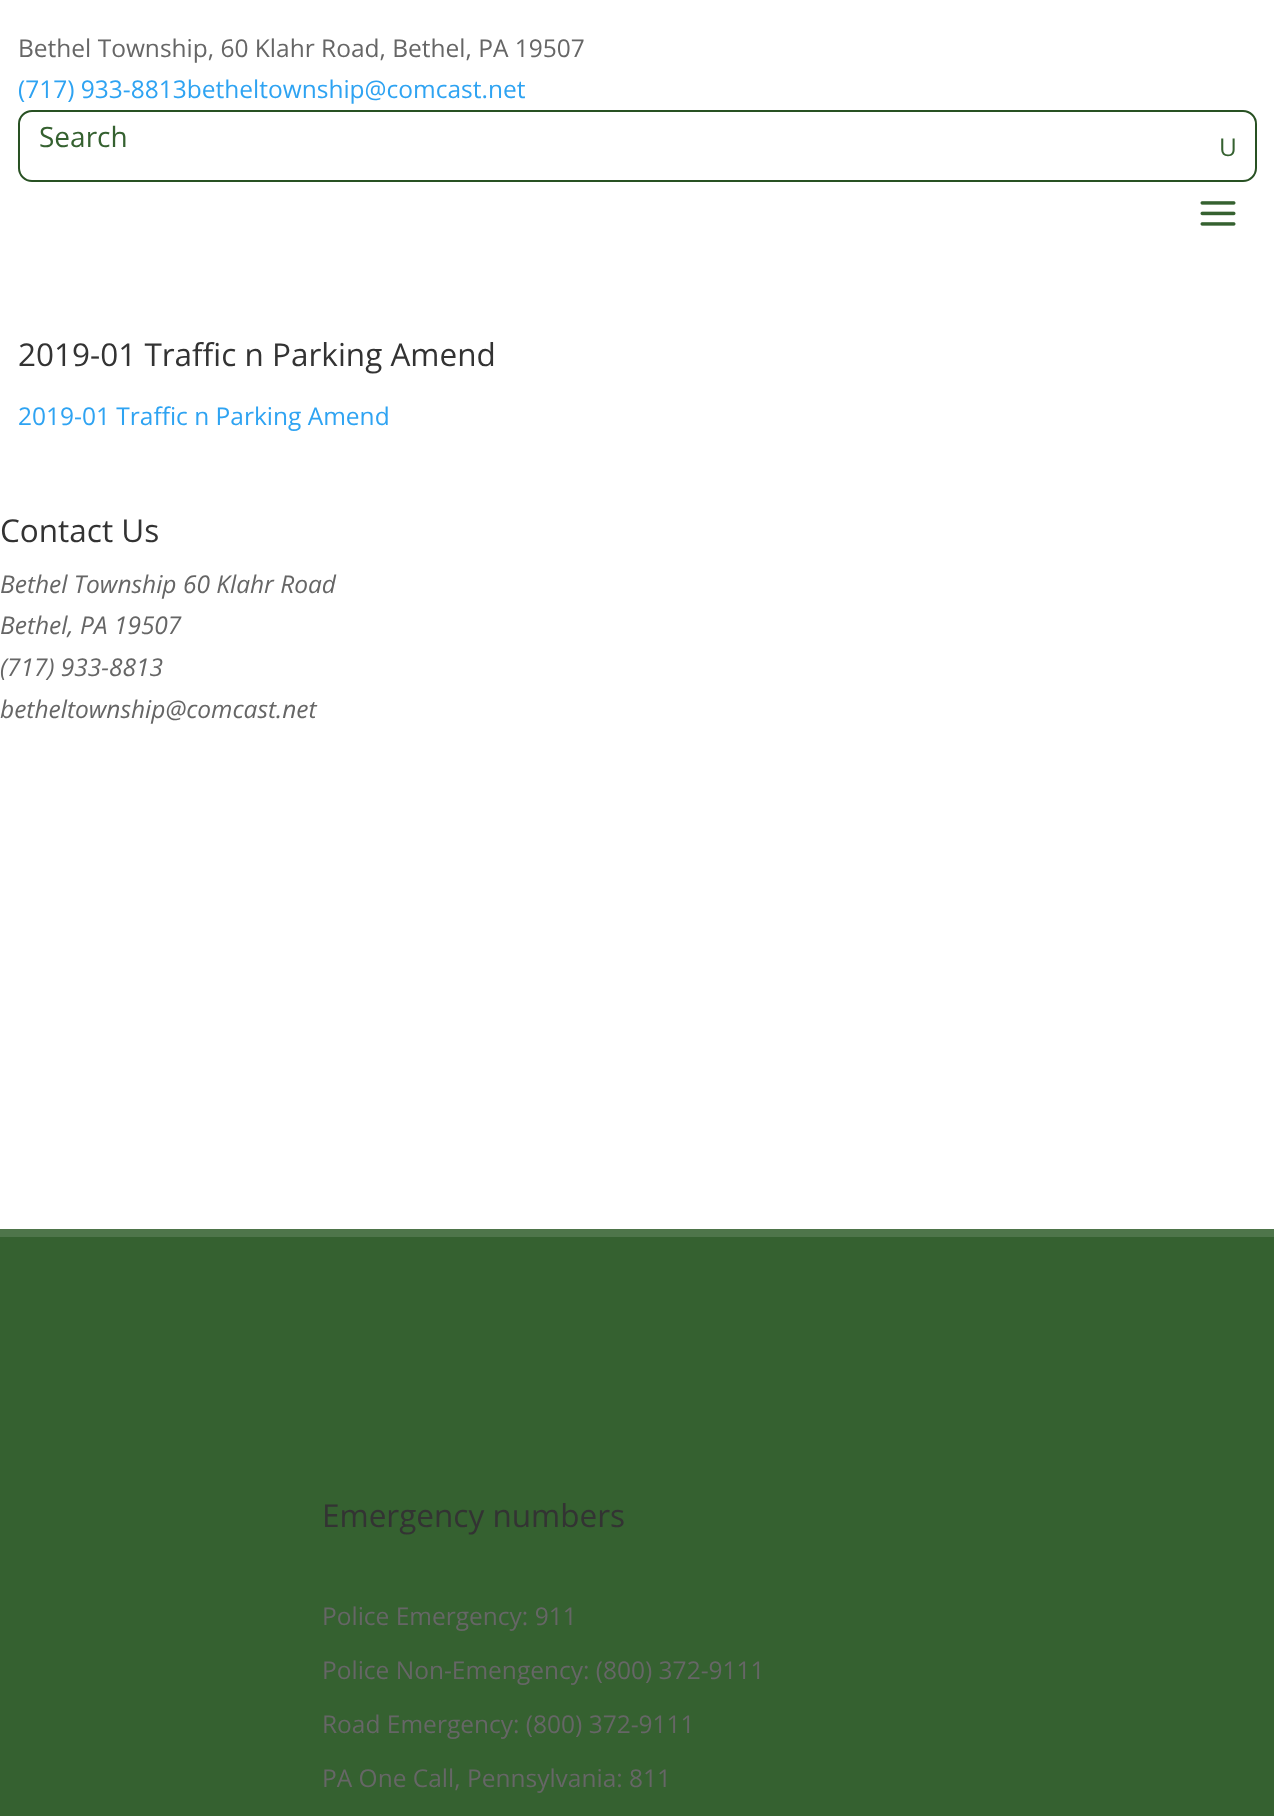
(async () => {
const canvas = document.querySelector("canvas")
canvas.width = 1274
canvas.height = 1816
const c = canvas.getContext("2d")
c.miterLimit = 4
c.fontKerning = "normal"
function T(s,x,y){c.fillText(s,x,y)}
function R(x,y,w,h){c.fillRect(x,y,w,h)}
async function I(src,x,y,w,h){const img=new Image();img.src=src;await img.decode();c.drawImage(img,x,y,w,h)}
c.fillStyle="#fff"
R(0,0,1274,1816)
c.font="24.5px Open Sans"
c.fillStyle="#666"
T("Bethel Township, 60 Klahr Road, Bethel, PA 19507",18,57)
c.fillStyle="#2ea3f2"
T("(717) 933-8813betheltownship@comcast.net",18,98)
c.beginPath()
c.roundRect(19,111,1237,70,13)
c.strokeStyle="#285123"
c.lineWidth=2
c.stroke()
c.font="28px Open Sans"
c.fillStyle="#356130"
T("Search",39,147)
c.font="24.5px Open Sans"
T("U",1219,156)
await I("1.png",1200,201,36,25)
c.font="31.5px Open Sans"
c.fillStyle="#333"
T("2019-01 Traffic n Parking Amend",18,366)
c.font="24.5px Open Sans"
c.fillStyle="#2ea3f2"
T("2019-01 Traffic n Parking Amend",18,425)
c.font="31.5px Open Sans"
c.fillStyle="#333"
T("Contact Us",0,542)
c.font="italic 24.5px Open Sans"
c.fillStyle="#666"
T("Bethel Township 60 Klahr Road",0,593)
T("Bethel, PA 19507",0,634)
T("(717) 933-8813",0,676)
T("betheltownship@comcast.net",0,718)
c.fillStyle="#356130"
R(0,1237,1274,579)
c.fillStyle="#4e754a"
R(0,1229,1274,8)
c.font="31.5px Open Sans"
c.fillStyle="#333"
T("Emergency numbers",322,1527)
c.font="24.5px Open Sans"
c.fillStyle="#666"
T("Police Emergency: 911",322,1625)
T("Police Non-Emengency: (800) 372-9111",322,1679)
T("Road Emergency: (800) 372-9111",322,1733)
T("PA One Call, Pennsylvania: 811",322,1787)
})()
